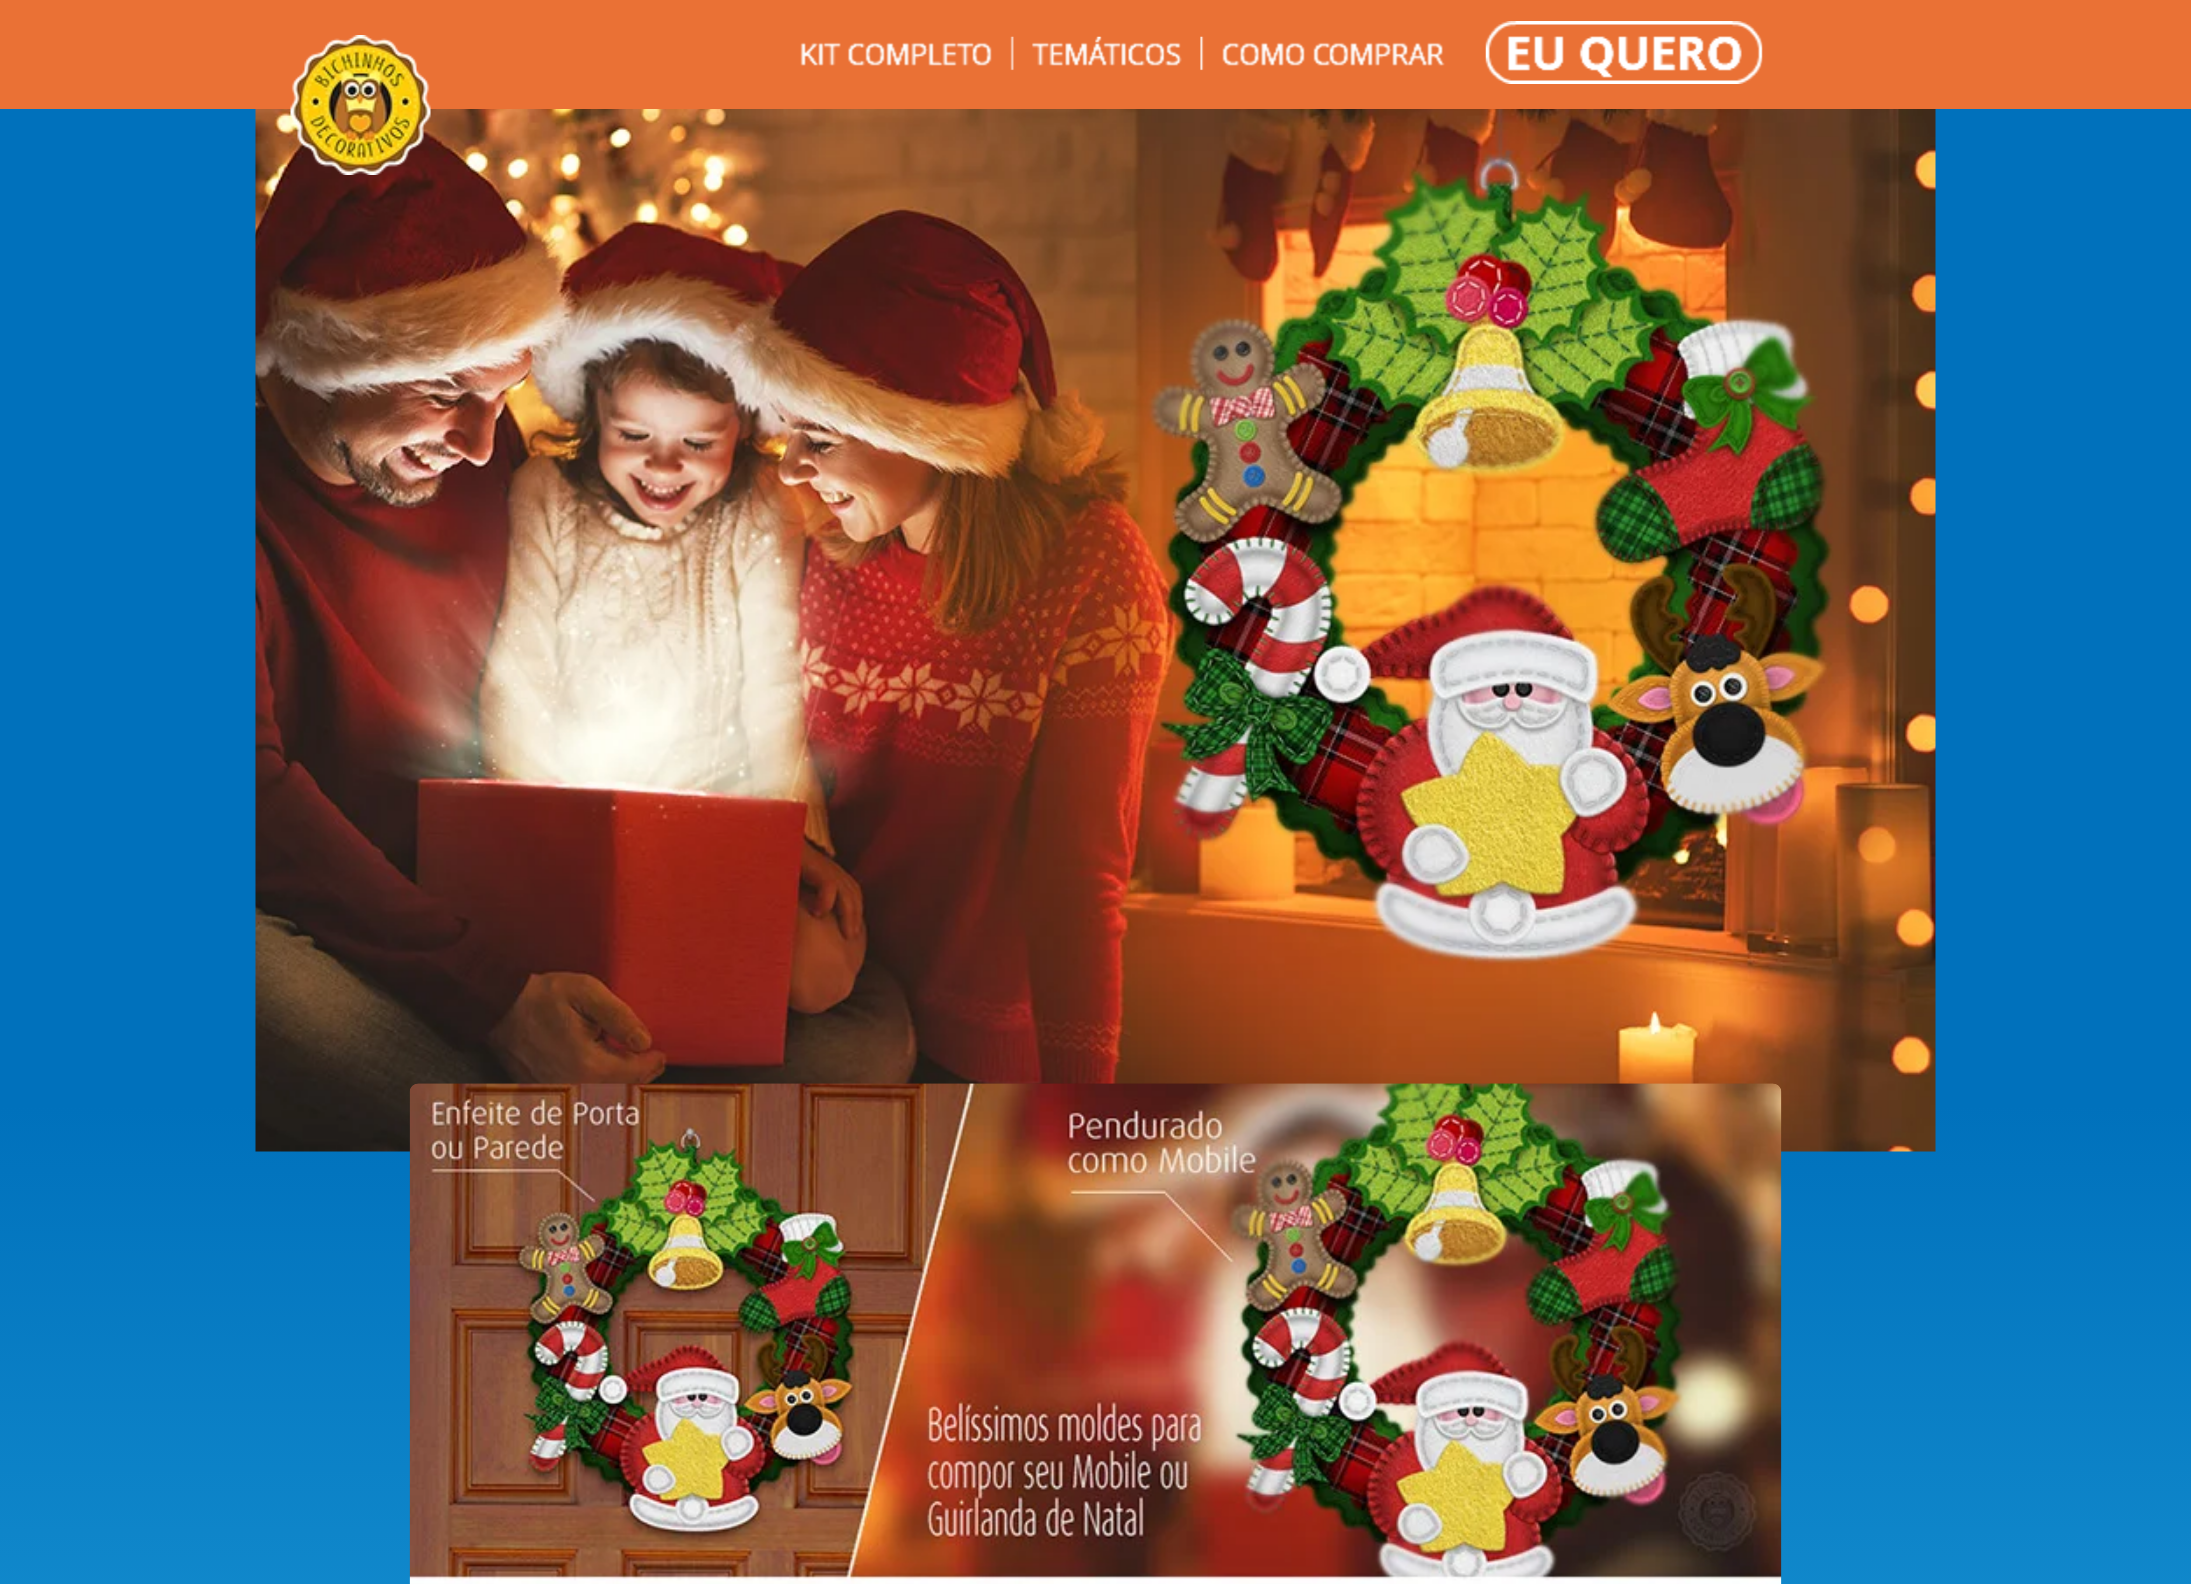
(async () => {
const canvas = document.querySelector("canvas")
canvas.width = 2191
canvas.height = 1584
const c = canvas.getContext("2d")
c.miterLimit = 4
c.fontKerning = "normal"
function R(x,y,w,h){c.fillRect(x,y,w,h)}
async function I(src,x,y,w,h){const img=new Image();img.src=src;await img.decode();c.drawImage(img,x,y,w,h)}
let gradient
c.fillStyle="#fff"
R(0,0,2191,1584)
c.fillStyle="#ea7135"
R(0,0,2191,109)
gradient = c.createLinearGradient(1095,52,1096,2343)
gradient.addColorStop(.46,"#0071bc")
gradient.addColorStop(1,"#29abe2")
c.fillStyle = gradient
R(0,109,2191,1475)
await I("6.png",255,109,1681,1043)
await I("1.png",290,35,141,140)
await I("2.png",800,36,214,35)
await I("3.png",1031,36,151,30)
await I("4.png",1200,36,245,35)
await I("5.png",1485,21,278,63)
await I("7.png",409,1083,1373,501)
})()
